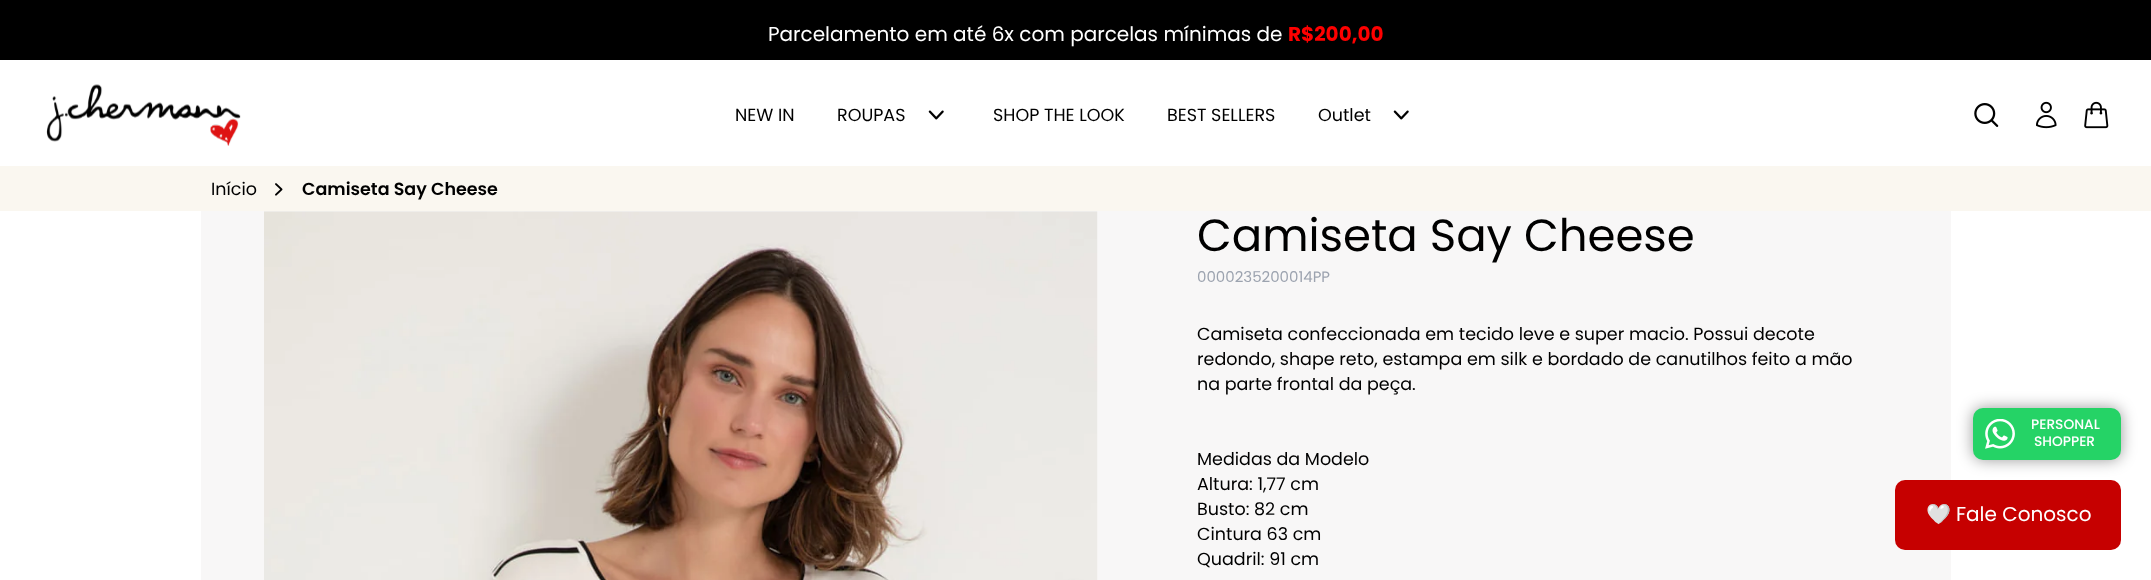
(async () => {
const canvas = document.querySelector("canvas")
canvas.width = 2151
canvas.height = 580
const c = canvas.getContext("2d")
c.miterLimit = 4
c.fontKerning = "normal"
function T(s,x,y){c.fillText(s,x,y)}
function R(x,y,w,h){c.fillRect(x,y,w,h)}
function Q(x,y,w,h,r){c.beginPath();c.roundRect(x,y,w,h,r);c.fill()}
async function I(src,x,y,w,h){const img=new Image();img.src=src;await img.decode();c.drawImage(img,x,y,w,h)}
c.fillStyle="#fff"
R(0,0,2151,580)
c.fillStyle="#000"
R(0,0,2151,60)
c.font="20px Poppins"
c.fillStyle="#fff"
T("Parcelamento em até 6x com parcelas mínimas de",768,41)
c.font="bold 20px Poppins"
c.fillStyle="#f00"
T("R$200,00",1288,41)
await I("1.png",46,84,195,62)
c.font="17.5px Poppins"
c.fillStyle="#000"
T("NEW IN",735,121)
T("ROUPAS",837,121)
await I("2.png",928,110,16,10)
T("SHOP THE LOOK",993,121)
T("BEST SELLERS",1167,121)
T("Outlet",1318,121)
await I("2.png",1393,110,16,10)
await I("3.png",1974,103,25,24)
await I("4.png",2036,101,21,28)
await I("5.png",2084,101,25,28)
c.fillStyle="#faf7f0"
R(0,166,2151,45)
c.fillStyle="#000"
T("Início",211,195)
await I("6.png",275,183,8,13)
c.font="600 17.5px Poppins"
T("Camiseta Say Cheese",302,195)
c.fillStyle="#f8f7f7"
R(201,211,1750,369)
await I("7.png",264,211,834,369)
c.font="45px Poppins"
c.fillStyle="#000"
T("Camiseta Say Cheese",1197,251)
c.font="15px Poppins"
c.fillStyle="#9ca3af"
T("0000235200014PP",1197,282)
c.font="17.5px Poppins"
c.fillStyle="#000"
T("Camiseta confeccionada em tecido leve e super macio. Possui decote",1197,340)
T("redondo, shape reto, estampa em silk e bordado de canutilhos feito a mão",1197,365)
T("na parte frontal da peça.",1197,390)
T("Medidas da Modelo",1197,465)
T("Altura: 1,77 cm",1197,490)
T("Busto: 82 cm",1197,515)
T("Cintura 63 cm",1197,540)
T("Quadril: 91 cm",1197,565)
c.fillStyle="#00000066"
c.filter="blur(7.5px)"
c.beginPath()
c.roundRect(1973,408,148,52,10)
c.fill()
c.filter="none"
c.fillStyle="#25d366"
Q(1973,408,148,52,10)
await I("8.png",1985,419,30,30)
c.font="500 13.75px Poppins"
c.fillStyle="#fff"
T("PERSONAL",2031,429)
T("SHOPPER",2034,446)
c.fillStyle="#c60000"
Q(1895,480,226,70,10)
c.font="20px Noto Color Emoji"
c.fillStyle="#fff"
T("🤍",1926,521)
c.font="20px Poppins"
T("Fale Conosco",1956,521)
})()
